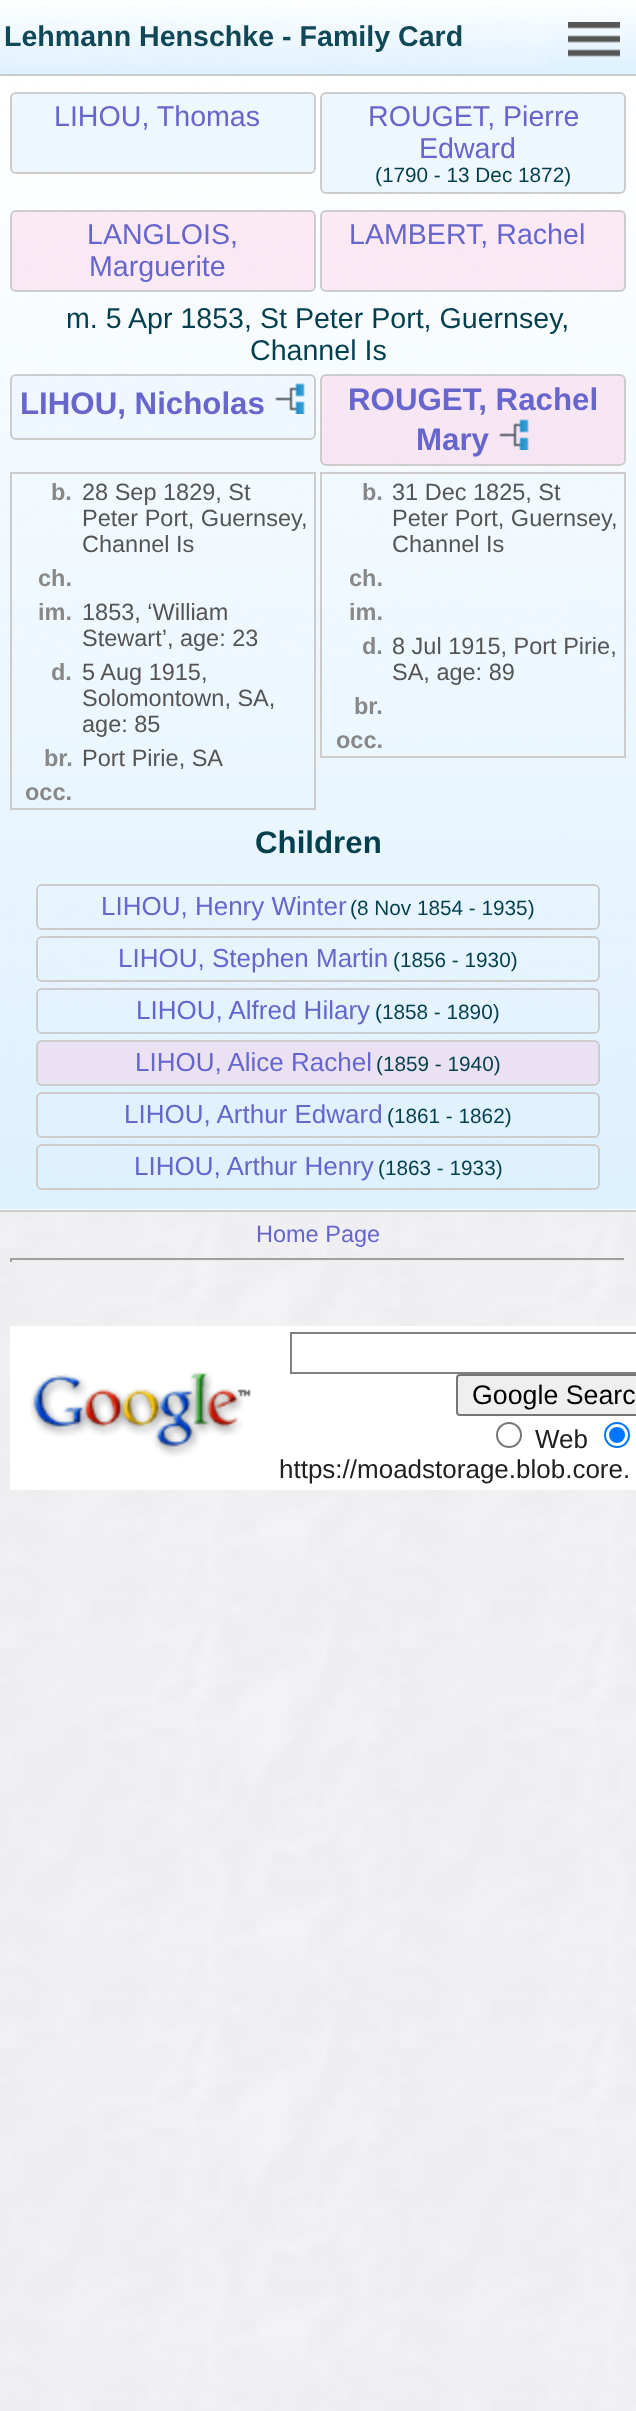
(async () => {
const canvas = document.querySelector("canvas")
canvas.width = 636
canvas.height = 2411
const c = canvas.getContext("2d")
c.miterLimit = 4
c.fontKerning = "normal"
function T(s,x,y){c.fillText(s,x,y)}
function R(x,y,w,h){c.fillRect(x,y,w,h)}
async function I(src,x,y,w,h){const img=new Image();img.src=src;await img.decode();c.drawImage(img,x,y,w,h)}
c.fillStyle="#fff"
R(0,0,636,2411)
await I("1.png",0,0,636,2411)
c.fillStyle="#def1fff2"
R(0,0,636,74)
await I("2.png",0,0,636,72)
c.fillStyle="#ccc"
R(0,74,636,2)
c.font="bold 28.6px Liberation Sans"
c.fillStyle="#104857"
T("Lehmann Henschke - Family Card",4,46)
c.fillStyle="#def1fff2"
R(548,0,88,70)
await I("3.png",548,0,88,61)
await I("4.png",568,22,52,35)
c.fillStyle="#def1ff"
R(0,76,636,1134)
await I("5.png",0,76,636,1134)
c.fillStyle="#ccc"
R(0,1210,636,2)
c.fillStyle="#e0effe82"
c.beginPath()
c.roundRect(11,93,304,80,5)
c.fill()
c.strokeStyle="#ccc"
c.lineWidth=2
c.stroke()
c.font="28.6px Liberation Sans"
c.fillStyle="#66c"
T("LIHOU, Thomas",54,126)
c.fillStyle="#e0effe82"
c.beginPath()
c.roundRect(321,93,304,100,5)
c.fill()
c.stroke()
c.fillStyle="#66c"
T("ROUGET, Pierre",368,126)
T("Edward",419,158)
c.font="20.75px Liberation Sans"
c.fillStyle="#043f4e"
T("(1790 - 13 Dec 1872)",375,182)
c.fillStyle="#fcb7d647"
c.beginPath()
c.roundRect(11,211,304,80,5)
c.fill()
c.stroke()
c.font="28.6px Liberation Sans"
c.fillStyle="#66c"
T("LANGLOIS,",87,244)
T("Marguerite",89,276)
c.fillStyle="#fcb7d647"
c.beginPath()
c.roundRect(321,211,304,80,5)
c.fill()
c.stroke()
c.fillStyle="#66c"
T("LAMBERT, Rachel",349,244)
c.fillStyle="#043f4e"
T("m. 5 Apr 1853, St Peter Port, Guernsey,",66,328)
T("Channel Is",250,360)
c.fillStyle="#e0effe4d"
c.beginPath()
c.roundRect(11,375,304,64,5)
c.fill()
c.stroke()
c.font="bold 31.25px Liberation Sans"
c.fillStyle="#66c"
T("LIHOU, Nicholas",20,414)
await I("6.png",275,383,30,31)
c.fillStyle="#fcb7d64d"
c.beginPath()
c.roundRect(321,375,304,90,5)
c.fill()
c.stroke()
c.fillStyle="#66c"
T("ROUGET, Rachel",348,410)
T("Mary",416,450)
await I("7.png",499,419,30,31)
c.strokeRect(11,473,304,336)
c.font="bold 23.5px Liberation Sans"
c.fillStyle="#888"
T("b.",51,500)
c.font="23.5px Liberation Sans"
c.fillStyle="#555"
T("28 Sep 1829, St",82,500)
T("Peter Port, Guernsey,",82,526)
T("Channel Is",82,552)
c.font="bold 23.5px Liberation Sans"
c.fillStyle="#888"
T("ch.",38,586)
T("im.",38,620)
c.font="23.5px Liberation Sans"
c.fillStyle="#555"
T("1853, ‘William",82,620)
T("Stewart’, age: 23",82,646)
c.font="bold 23.5px Liberation Sans"
c.fillStyle="#888"
T("d.",51,680)
c.font="23.5px Liberation Sans"
c.fillStyle="#555"
T("5 Aug 1915,",82,680)
T("Solomontown, SA,",82,706)
T("age: 85",82,732)
c.font="bold 23.5px Liberation Sans"
c.fillStyle="#888"
T("br.",44,766)
c.font="23.5px Liberation Sans"
c.fillStyle="#555"
T("Port Pirie, SA",82,766)
c.font="bold 23.5px Liberation Sans"
c.fillStyle="#888"
T("occ.",25,800)
c.strokeRect(321,473,304,284)
T("b.",362,500)
c.font="23.5px Liberation Sans"
c.fillStyle="#555"
T("31 Dec 1825, St",392,500)
T("Peter Port, Guernsey,",392,526)
T("Channel Is",392,552)
c.font="bold 23.5px Liberation Sans"
c.fillStyle="#888"
T("ch.",349,586)
T("im.",349,620)
T("d.",362,654)
c.font="23.5px Liberation Sans"
c.fillStyle="#555"
T("8 Jul 1915, Port Pirie,",392,654)
T("SA, age: 89",392,680)
c.font="bold 23.5px Liberation Sans"
c.fillStyle="#888"
T("br.",354,714)
T("occ.",336,748)
c.font="bold 31.25px Liberation Sans"
c.fillStyle="#043f4e"
T("Children",255,853)
c.beginPath()
c.roundRect(37,885,562,44,5)
c.stroke()
c.font="26px Liberation Sans"
c.fillStyle="#66c"
T("LIHOU, Henry Winter",101,915)
c.font="20.75px Liberation Sans"
c.fillStyle="#043f4e"
T("(8 Nov 1854 - 1935)",350,915)
c.beginPath()
c.roundRect(37,937,562,44,5)
c.stroke()
c.font="26px Liberation Sans"
c.fillStyle="#66c"
T("LIHOU, Stephen Martin",118,967)
c.font="20.75px Liberation Sans"
c.fillStyle="#043f4e"
T("(1856 - 1930)",393,967)
c.beginPath()
c.roundRect(37,989,562,44,5)
c.stroke()
c.font="26px Liberation Sans"
c.fillStyle="#66c"
T("LIHOU, Alfred Hilary",136,1019)
c.font="20.75px Liberation Sans"
c.fillStyle="#043f4e"
T("(1858 - 1890)",375,1019)
c.fillStyle="#eae1f3"
c.beginPath()
c.roundRect(37,1041,562,44,5)
c.fill()
c.stroke()
c.font="26px Liberation Sans"
c.fillStyle="#66c"
T("LIHOU, Alice Rachel",135,1071)
c.font="20.75px Liberation Sans"
c.fillStyle="#043f4e"
T("(1859 - 1940)",376,1071)
c.beginPath()
c.roundRect(37,1093,562,44,5)
c.stroke()
c.font="26px Liberation Sans"
c.fillStyle="#66c"
T("LIHOU, Arthur Edward",124,1123)
c.font="20.75px Liberation Sans"
c.fillStyle="#043f4e"
T("(1861 - 1862)",387,1123)
c.beginPath()
c.roundRect(37,1145,562,44,5)
c.stroke()
c.font="26px Liberation Sans"
c.fillStyle="#66c"
T("LIHOU, Arthur Henry",134,1175)
c.font="20.75px Liberation Sans"
c.fillStyle="#043f4e"
T("(1863 - 1933)",378,1175)
c.font="23.5px Liberation Sans"
c.fillStyle="#66c"
T("Home Page",256,1242)
c.fillStyle="#9f9f9f"
R(10,1258,616,2)
c.fillStyle="#eee"
R(624,1258,2,4)
R(10,1260,616,2)
c.fillStyle="#9f9f9f"
R(10,1258,2,4)
c.fillStyle="#fff"
R(10,1326,626,164)
await I("8.png",29,1371,222,86)
c.strokeStyle="#808080"
c.strokeRect(291,1333,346,40)
c.fillStyle="#efefef"
c.beginPath()
c.roundRect(457,1375,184,40,3)
c.fill()
c.strokeStyle="#767676"
c.stroke()
c.font="26.75px Liberation Sans"
c.fillStyle="#000"
T("Google Searc",472,1404)
c.beginPath()
c.arc(509,1435,12,0,7)
c.stroke()
c.font="26px Liberation Sans"
c.fillStyle="#202020"
T("Web",535,1448)
c.beginPath()
c.arc(617,1435,12,0,7)
c.strokeStyle="#0075ff"
c.stroke()
c.fillStyle="#0075ff"
c.beginPath()
c.arc(617,1435,8,0,7)
c.fill()
c.fillStyle="#202020"
T("https://moadstorage.blob.core.",279,1478)
})()
